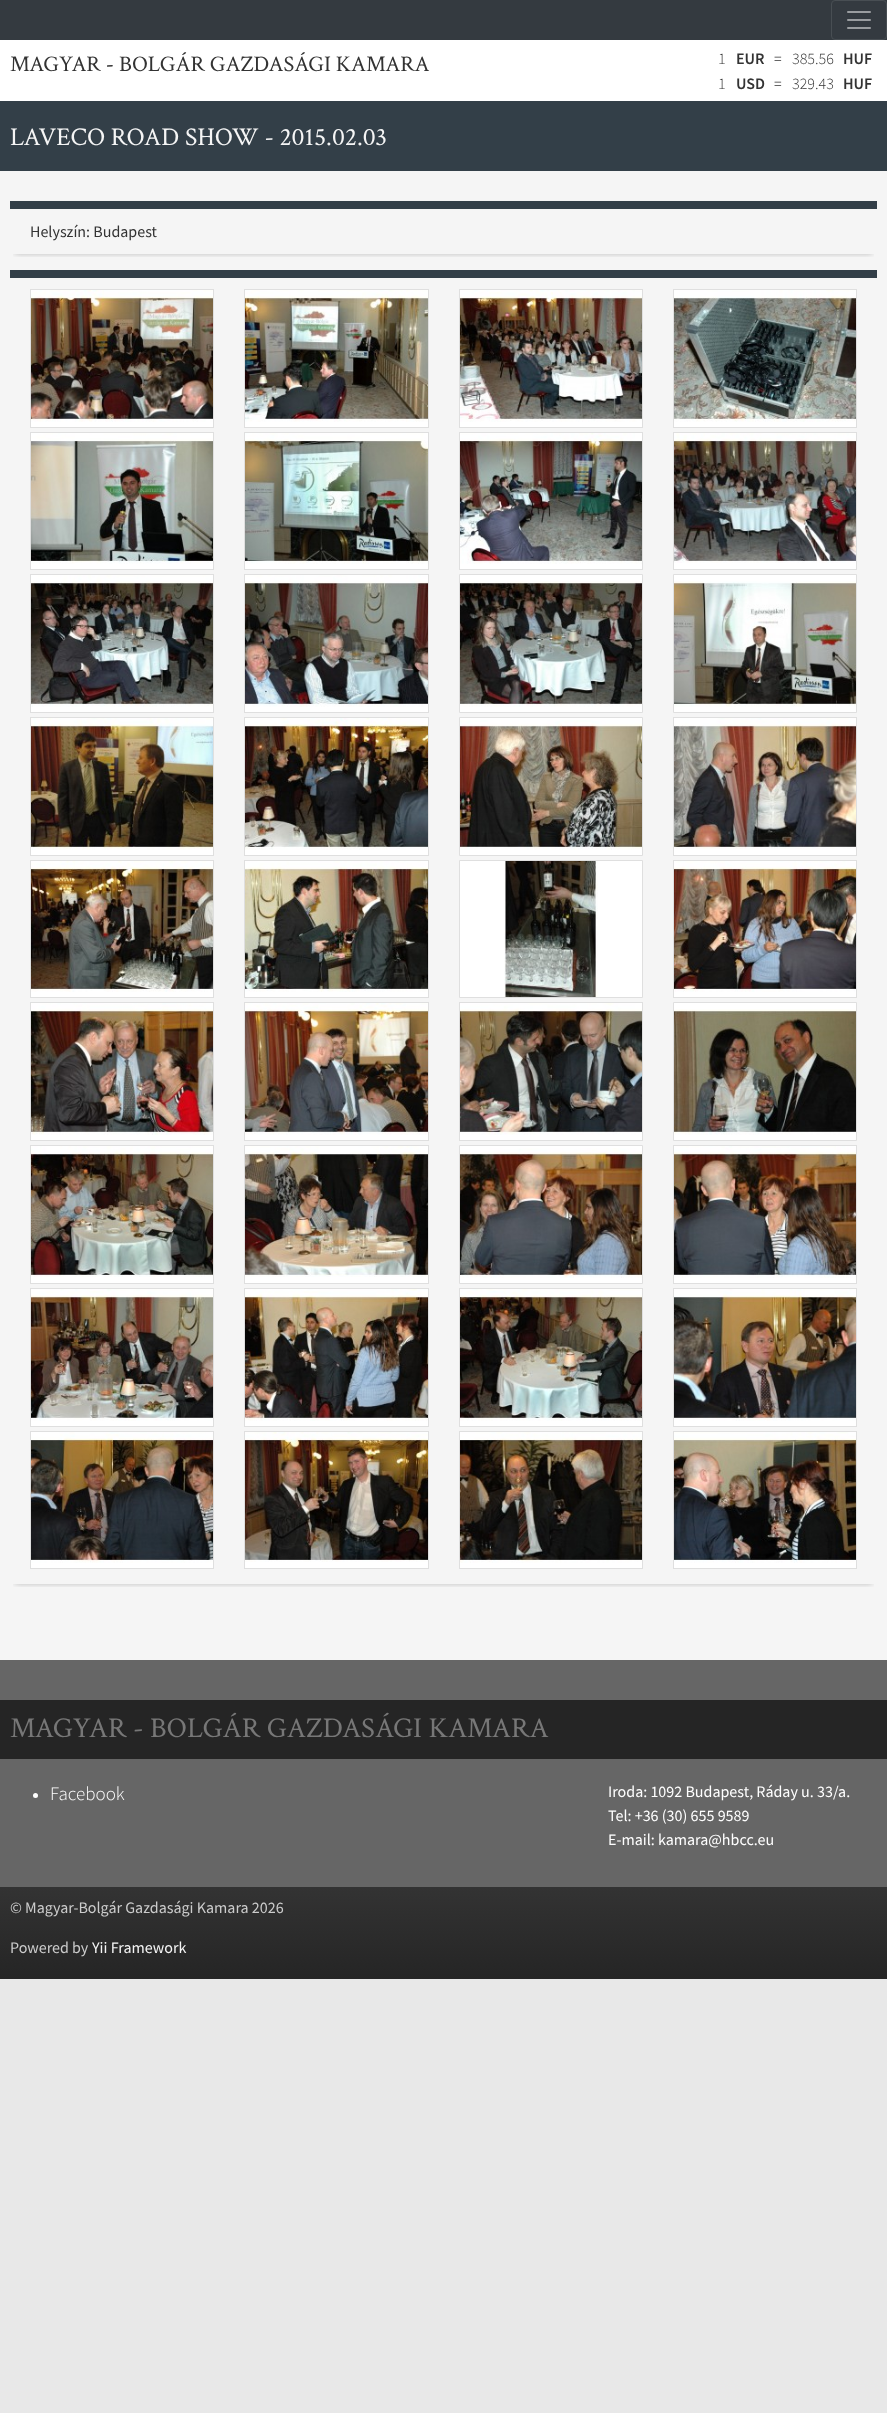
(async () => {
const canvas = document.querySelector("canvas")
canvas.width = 887
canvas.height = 2413
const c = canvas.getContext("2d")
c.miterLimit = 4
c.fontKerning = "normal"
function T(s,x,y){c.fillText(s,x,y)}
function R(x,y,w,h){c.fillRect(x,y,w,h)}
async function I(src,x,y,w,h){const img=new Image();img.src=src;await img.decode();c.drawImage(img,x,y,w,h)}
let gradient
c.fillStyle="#e8e8e8"
R(0,0,887,2413)
c.fillStyle="#343a40"
R(0,0,887,40)
c.beginPath()
c.roundRect(831.5,.5,55,39,3.5)
c.strokeStyle="#484e53"
c.stroke()
await I("1.png",847,11,24,18)
c.fillStyle="#fff"
R(0,40,887,61)
c.font="22.4px Crimson Text"
c.fillStyle="#333"
T("MAGYAR - BOLGÁR GAZDASÁGI KAMARA",10,71)
c.font="300 16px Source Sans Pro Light"
T("1",718,64)
c.font="600 16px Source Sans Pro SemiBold"
T("EUR",736,64)
c.font="300 16px Source Sans Pro Light"
T("=",774,64)
T("385.56",792,64)
c.font="600 16px Source Sans Pro SemiBold"
T("HUF",843,64)
c.font="300 16px Source Sans Pro Light"
T("1",718,89)
c.font="600 16px Source Sans Pro SemiBold"
T("USD",736,89)
c.font="300 16px Source Sans Pro Light"
T("=",774,89)
T("329.43",792,89)
c.font="600 16px Source Sans Pro SemiBold"
T("HUF",843,89)
c.fillStyle="#333f48"
R(0,101,887,70)
c.font="25.6px Crimson Text"
c.fillStyle="#f5f5f5"
T("LAVECO ROAD SHOW - 2015.02.03",10,145)
R(0,171,887,1489)
c.save()
c.beginPath()
c.rect(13,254,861,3)
c.clip()
c.fillStyle="#0000004d"
c.filter="blur(3px)"
c.beginPath()
c.rect(15,210,857,43)
c.fill()
c.filter="none"
c.restore()
c.fillStyle="#333f48"
R(10,201,867,8)
c.font="16px Source Sans Pro"
c.fillStyle="#333"
T("Helyszín: Budapest",30,237)
c.save()
c.beginPath()
c.rect(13,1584,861,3)
c.clip()
c.fillStyle="#0000004d"
c.filter="blur(3px)"
c.beginPath()
c.rect(15,279,857,1304)
c.fill()
c.filter="none"
c.restore()
c.fillStyle="#333f48"
R(10,270,867,8)
c.fillStyle="#fff"
R(31,422,182,5)
c.strokeStyle="#dfdfdf"
c.strokeRect(30.5,289.5,183,138)
await I("2.png",31,290,182,132)
R(245,422,183,5)
c.strokeRect(244.5,289.5,184,138)
await I("3.png",245,290,183,132)
R(460,422,182,5)
c.strokeRect(459.5,289.5,183,138)
await I("4.png",460,290,182,132)
R(674,422,182,5)
c.strokeRect(673.5,289.5,183,138)
await I("5.png",674,290,182,132)
R(31,564,182,5)
c.strokeRect(30.5,432.5,183,137)
await I("6.png",31,433,182,131)
R(245,564,183,5)
c.strokeRect(244.5,432.5,184,137)
await I("7.png",245,433,183,131)
R(460,564,182,5)
c.strokeRect(459.5,432.5,183,137)
await I("8.png",460,433,182,131)
R(674,563,182,6)
c.strokeRect(673.5,432.5,183,137)
await I("9.png",674,433,182,130)
R(31,707,182,5)
c.strokeRect(30.5,574.5,183,138)
await I("10.png",31,575,182,132)
R(245,707,183,5)
c.strokeRect(244.5,574.5,184,138)
await I("11.png",245,575,183,132)
c.beginPath()
c.rect(459.5,574.5,183,138)
c.fill()
c.stroke()
await I("12.png",460,581,182,126)
c.beginPath()
c.rect(673.5,574.5,183,138)
c.fill()
c.stroke()
await I("13.png",674,581,182,126)
R(31,850,182,5)
c.strokeRect(30.5,717.5,183,138)
await I("14.png",31,718,182,132)
R(245,850,183,5)
c.strokeRect(244.5,717.5,184,138)
await I("15.png",245,718,183,132)
c.beginPath()
c.rect(459.5,717.5,183,138)
c.fill()
c.stroke()
await I("16.png",460,720,182,130)
R(674,849,182,6)
c.strokeRect(673.5,717.5,183,138)
await I("17.png",674,718,182,131)
R(31,992,182,5)
c.strokeRect(30.5,860.5,183,137)
await I("18.png",31,861,182,131)
R(245,992,183,5)
c.strokeRect(244.5,860.5,184,137)
await I("19.png",245,861,183,131)
c.beginPath()
c.rect(459.5,860.5,183,137)
c.fill()
c.stroke()
await I("20.png",504,861,94,136)
R(674,992,182,5)
c.strokeRect(673.5,860.5,183,137)
await I("21.png",674,861,182,131)
R(31,1135,182,5)
c.strokeRect(30.5,1002.5,183,138)
await I("22.png",31,1003,182,132)
R(245,1135,183,5)
c.strokeRect(244.5,1002.5,184,138)
await I("23.png",245,1003,183,132)
R(460,1135,182,5)
c.strokeRect(459.5,1002.5,183,138)
await I("24.png",460,1003,182,132)
c.beginPath()
c.rect(673.5,1002.5,183,138)
c.fill()
c.stroke()
await I("25.png",674,1009,182,126)
R(31,1277,182,6)
c.strokeRect(30.5,1145.5,183,138)
await I("26.png",31,1146,182,131)
R(245,1277,183,6)
c.strokeRect(244.5,1145.5,184,138)
await I("27.png",245,1146,183,131)
c.beginPath()
c.rect(459.5,1145.5,183,138)
c.fill()
c.stroke()
await I("28.png",460,1148,182,130)
R(674,1278,182,5)
c.strokeRect(673.5,1145.5,183,138)
await I("29.png",674,1146,182,132)
R(31,1421,182,5)
c.strokeRect(30.5,1288.5,183,138)
await I("30.png",31,1289,182,132)
R(245,1421,183,5)
c.strokeRect(244.5,1288.5,184,138)
await I("31.png",245,1289,183,132)
R(460,1421,182,5)
c.strokeRect(459.5,1288.5,183,138)
await I("32.png",460,1289,182,132)
R(674,1421,182,5)
c.strokeRect(673.5,1288.5,183,138)
await I("33.png",674,1289,182,132)
R(31,1563,182,5)
c.strokeRect(30.5,1431.5,183,137)
await I("34.png",31,1432,182,131)
R(245,1562,183,6)
c.strokeRect(244.5,1431.5,184,137)
await I("35.png",245,1432,183,130)
R(460,1563,182,5)
c.strokeRect(459.5,1431.5,183,137)
await I("36.png",460,1432,182,131)
R(674,1563,182,5)
c.strokeRect(673.5,1431.5,183,137)
await I("37.png",674,1432,182,131)
c.fillStyle="#666"
R(0,1660,887,40)
c.fillStyle="#252525"
R(0,1700,887,59)
c.font="28.75px Crimson Text"
c.fillStyle="#777"
T("MAGYAR - BOLGÁR GAZDASÁGI KAMARA",10,1737)
c.fillStyle="#666"
R(0,1759,887,128)
c.fillStyle="#fff"
c.beginPath()
c.arc(35.5,1795.5,2.5,0,7)
c.fill()
c.font="300 19px Source Sans Pro Light"
T("Facebook",50,1800)
c.font="16px Source Sans Pro"
T("Iroda: 1092 Budapest, Ráday u. 33/a.",608,1797)
T("Tel: +36 (30) 655 9589",608,1821)
T("E-mail: kamara@hbcc.eu",608,1845)
gradient = c.createLinearGradient(444,1887,444,1979)
gradient.addColorStop(0,"#333")
gradient.addColorStop(1,"#252525")
c.fillStyle = gradient
R(0,1887,887,92)
c.fillStyle="#ccc"
T("© Magyar-Bolgár Gazdasági Kamara 2026",10,1913)
T("Powered by",10,1953)
c.fillStyle="#f5f5f5"
T("Yii Framework",92,1953)
})()
